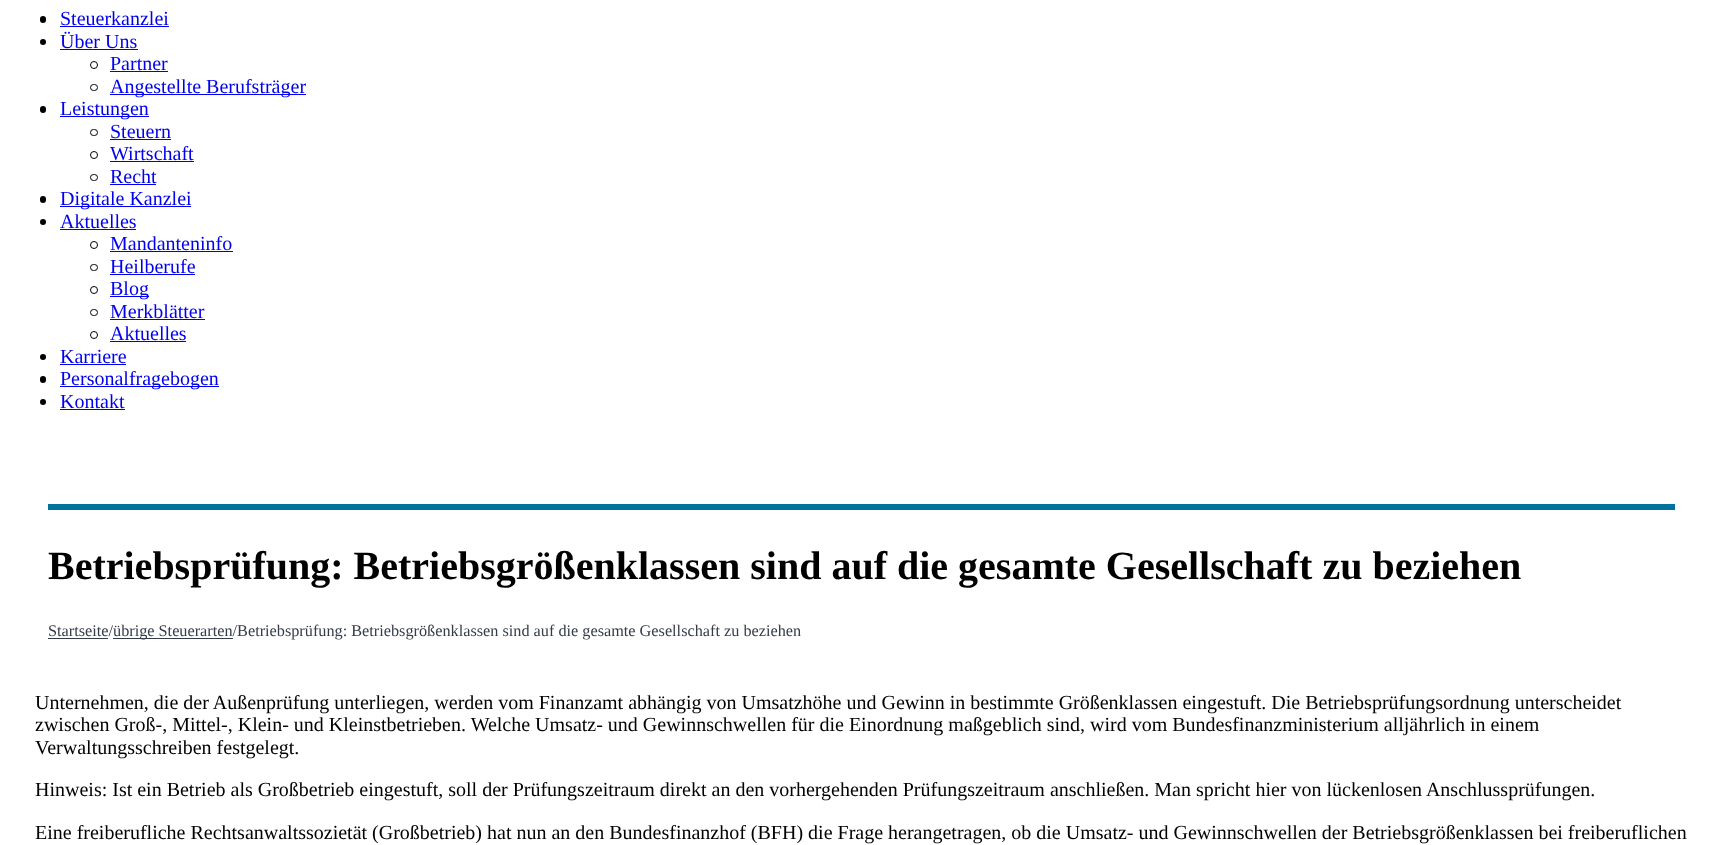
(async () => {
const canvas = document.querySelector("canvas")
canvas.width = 1722
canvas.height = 845
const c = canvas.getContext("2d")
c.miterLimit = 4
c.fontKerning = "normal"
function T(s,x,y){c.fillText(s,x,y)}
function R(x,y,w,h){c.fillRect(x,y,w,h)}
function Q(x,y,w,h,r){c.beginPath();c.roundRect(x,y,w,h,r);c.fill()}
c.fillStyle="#fff"
R(0,0,1722,845)
c.fillStyle="#000"
Q(40,16,6,7,3)
c.font="20px Liberation Serif"
c.fillStyle="#00e"
T("Steuerkanzlei",60,25)
R(60,26,109,1)
c.fillStyle="#000"
c.beginPath()
c.arc(43,42,3,0,7)
c.fill()
c.fillStyle="#00e"
T("Über Uns",60,48)
R(60,49,78,1)
c.beginPath()
c.arc(94,65,3.5,0,7)
c.strokeStyle="#000"
c.stroke()
T("Partner",110,70)
R(110,71,58,1)
c.beginPath()
c.roundRect(90.5,84.5,7,6,3)
c.stroke()
R(110,94,196,1)
T("Angestellte Berufsträger",110,93)
c.fillStyle="#000"
Q(40,106,6,7,3)
c.fillStyle="#00e"
R(60,116,89,1)
T("Leistungen",60,115)
c.beginPath()
c.roundRect(90.5,129.5,7,6,3)
c.stroke()
T("Steuern",110,138)
R(110,139,61,1)
c.beginPath()
c.arc(94,155,3.5,0,7)
c.stroke()
T("Wirtschaft",110,160)
R(110,161,84,1)
c.beginPath()
c.roundRect(90.5,174.5,7,6,3)
c.stroke()
T("Recht",110,183)
R(110,184,46,1)
c.fillStyle="#000"
Q(40,196,6,7,3)
c.fillStyle="#00e"
R(60,206,131,1)
T("Digitale Kanzlei",60,205)
c.fillStyle="#000"
c.beginPath()
c.arc(43,222,3,0,7)
c.fill()
c.fillStyle="#00e"
T("Aktuelles",60,228)
R(60,229,76,1)
c.beginPath()
c.arc(94,245,3.5,0,7)
c.stroke()
T("Mandanteninfo",110,250)
R(110,251,123,1)
c.beginPath()
c.roundRect(90.5,264.5,7,6,3)
c.stroke()
T("Heilberufe",110,273)
R(110,274,85,1)
c.beginPath()
c.arc(94,290,3.5,0,7)
c.stroke()
R(110,296,39,1)
T("Blog",110,295)
c.beginPath()
c.roundRect(90.5,309.5,7,6,3)
c.stroke()
T("Merkblätter",110,318)
R(110,319,95,1)
c.beginPath()
c.arc(94,335,3.5,0,7)
c.stroke()
T("Aktuelles",110,340)
R(110,341,76,1)
c.fillStyle="#000"
c.beginPath()
c.arc(43,357,3,0,7)
c.fill()
c.fillStyle="#00e"
T("Karriere",60,363)
R(60,364,66,1)
c.fillStyle="#000"
Q(40,376,6,7,3)
c.fillStyle="#00e"
R(60,386,159,1)
T("Personalfragebogen",60,385)
c.fillStyle="#000"
c.beginPath()
c.arc(43,402,3,0,7)
c.fill()
c.fillStyle="#00e"
T("Kontakt",60,408)
R(60,409,65,1)
c.fillStyle="#00729c"
R(48,504,1627,6)
c.font="bold 40px Liberation Serif"
c.fillStyle="#000"
T("Betriebsprüfung: Betriebsgrößenklassen sind auf die gesamte Gesellschaft zu beziehen",48,579)
c.font="16.25px Liberation Serif"
c.fillStyle="#343b49"
T("Startseite/",48,636)
R(48,638,60,1)
R(113,638,120,1)
T("übrige Steuerarten/Betriebsprüfung: Betriebsgrößenklassen sind auf die gesamte Gesellschaft zu beziehen",113,636)
c.font="20px Liberation Serif"
c.fillStyle="#000"
T("Unternehmen, die der Außenprüfung unterliegen, werden vom Finanzamt abhängig von Umsatzhöhe und Gewinn in bestimmte Größenklassen eingestuft. Die Betriebsprüfungsordnung unterscheidet",35,709)
T("zwischen Groß-, Mittel-, Klein- und Kleinstbetrieben. Welche Umsatz- und Gewinnschwellen für die Einordnung maßgeblich sind, wird vom Bundesfinanzministerium alljährlich in einem",35,731)
T("Verwaltungsschreiben festgelegt.",35,754)
T("Hinweis: Ist ein Betrieb als Großbetrieb eingestuft, soll der Prüfungszeitraum direkt an den vorhergehenden Prüfungszeitraum anschließen. Man spricht hier von lückenlosen Anschlussprüfungen.",35,796)
T("Eine freiberufliche Rechtsanwaltssozietät (Großbetrieb) hat nun an den Bundesfinanzhof (BFH) die Frage herangetragen, ob die Umsatz- und Gewinnschwellen der Betriebsgrößenklassen bei freiberuflichen",35,839)
})()
